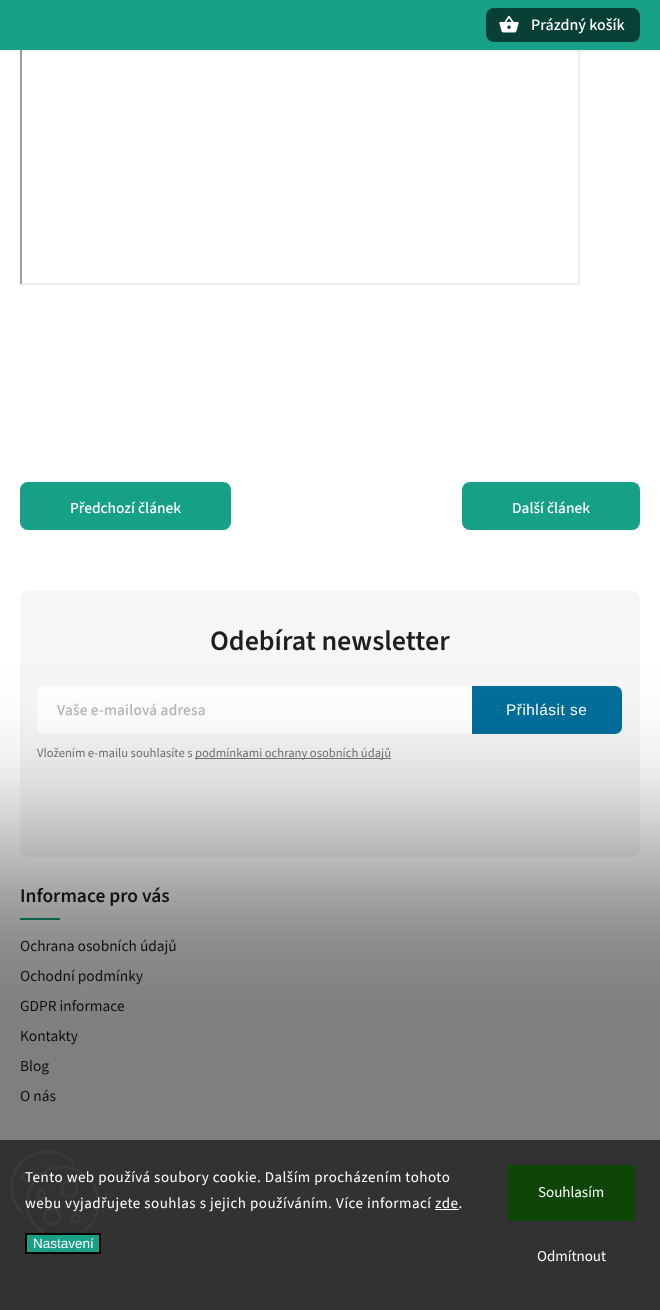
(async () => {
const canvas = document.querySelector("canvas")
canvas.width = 660
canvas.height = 1310
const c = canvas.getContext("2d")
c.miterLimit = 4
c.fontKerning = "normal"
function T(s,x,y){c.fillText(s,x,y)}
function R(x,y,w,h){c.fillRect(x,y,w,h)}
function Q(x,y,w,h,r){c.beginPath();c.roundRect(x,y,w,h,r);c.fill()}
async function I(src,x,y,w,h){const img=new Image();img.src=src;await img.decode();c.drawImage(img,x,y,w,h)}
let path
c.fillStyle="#fff"
R(0,0,660,1310)
c.fillStyle="#eee"
path = new Path2D("M580-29v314l-2-2v-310z")
c.fill(path)
path = new Path2D("M580 285h-560l2-2h556z")
c.fill(path)
c.fillStyle="#9f9f9f"
path = new Path2D("M20 285v-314l2 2v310z")
c.fill(path)
c.fillStyle="#0000001a"
c.filter="blur(2.5px)"
c.beginPath()
c.rect(0,0,660,50)
c.fill()
c.filter="none"
c.fillStyle="#16a085"
R(0,0,660,50)
c.fillStyle="#094035"
Q(486,8,154,34,8)
await I("1.png",499,15,20,18)
c.font="500 16px 'Source Sans 3'"
c.fillStyle="#fff"
T("Prázdný košík",531,30)
c.fillStyle="#16a085"
Q(20,482,211,48,8)
c.font="500 15.4px 'Source Sans 3'"
c.fillStyle="#fff"
T("Předchozí článek",70,513)
c.fillStyle="#16a085"
Q(462,482,178,48,8)
c.fillStyle="#fff"
T("Další článek",512,513)
c.fillStyle="#f6f6f6"
Q(20,591,620,266,8)
c.font="600 28px 'Source Sans 3'"
c.fillStyle="#1e1e1c"
T("Odebírat newsletter",210,650)
c.fillStyle="#fff"
c.beginPath()
c.roundRect(37,686,436,48,[7,0,0,7])
c.fill()
c.letterSpacing="0.2px"
c.font="500 15.4px 'Source Sans 3'"
c.fillStyle="#b6b6b6"
T("Vaše e-mailová adresa",57,715)
c.fillStyle="#006f9b"
c.beginPath()
c.roundRect(472,686,150,48,[0,7,7,0])
c.fill()
c.letterSpacing="0.5px"
c.font="15.4px Liberation Sans"
c.fillStyle="#fff"
T("Přihlásit se",506,715)
c.letterSpacing="0px"
c.font="12.6px 'Source Sans 3'"
c.fillStyle="#747473"
T("Vložením e-mailu souhlasíte s",37,757)
R(195,758,196,1)
T("podmínkami ochrany osobních údajů",195,757)
c.font="600 19.5px 'Source Sans 3'"
c.fillStyle="#1e1e1c"
T("Informace pro vás",20,902)
c.fillStyle="#16a085"
R(20,918,40,2)
c.font="15.4px 'Source Sans 3'"
c.fillStyle="#1e1e1c"
T("Ochrana osobních údajů",20,951)
T("Ochodní podmínky",20,981)
T("GDPR informace",20,1011)
T("Kontakty",20,1041)
T("Blog",20,1071)
T("O nás",20,1101)
c.fillStyle="#00000080"
c.filter="blur(80px)"
c.beginPath()
c.rect(-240,850,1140,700)
c.fill()
c.filter="none"
c.fillStyle="#323232"
R(0,1140,660,170)
await I("2.png",10,1150,90,83)
c.letterSpacing="0.5px"
c.font="15px 'Source Sans 3'"
c.fillStyle="#fff"
T("Tento web používá soubory cookie. Dalším procházením tohoto",25,1182)
T("webu vyjadřujete souhlas s jejich používáním. Více informací zde.",25,1208)
R(435,1209,24,1)
c.fillStyle="#16a085"
c.beginPath()
c.rect(26,1234,74,19)
c.fill()
c.strokeStyle="#000"
c.lineWidth=2
c.stroke()
c.letterSpacing="0px"
c.font="13.5px Liberation Sans"
c.fillStyle="#fff"
T("Nastavení",33,1248)
c.fillStyle="#0e4606"
R(508,1165,127,56)
c.font="15px 'Source Sans 3'"
c.fillStyle="#fff"
T("Souhlasím",538,1197)
T("Odmítnout",537,1261)
})()
